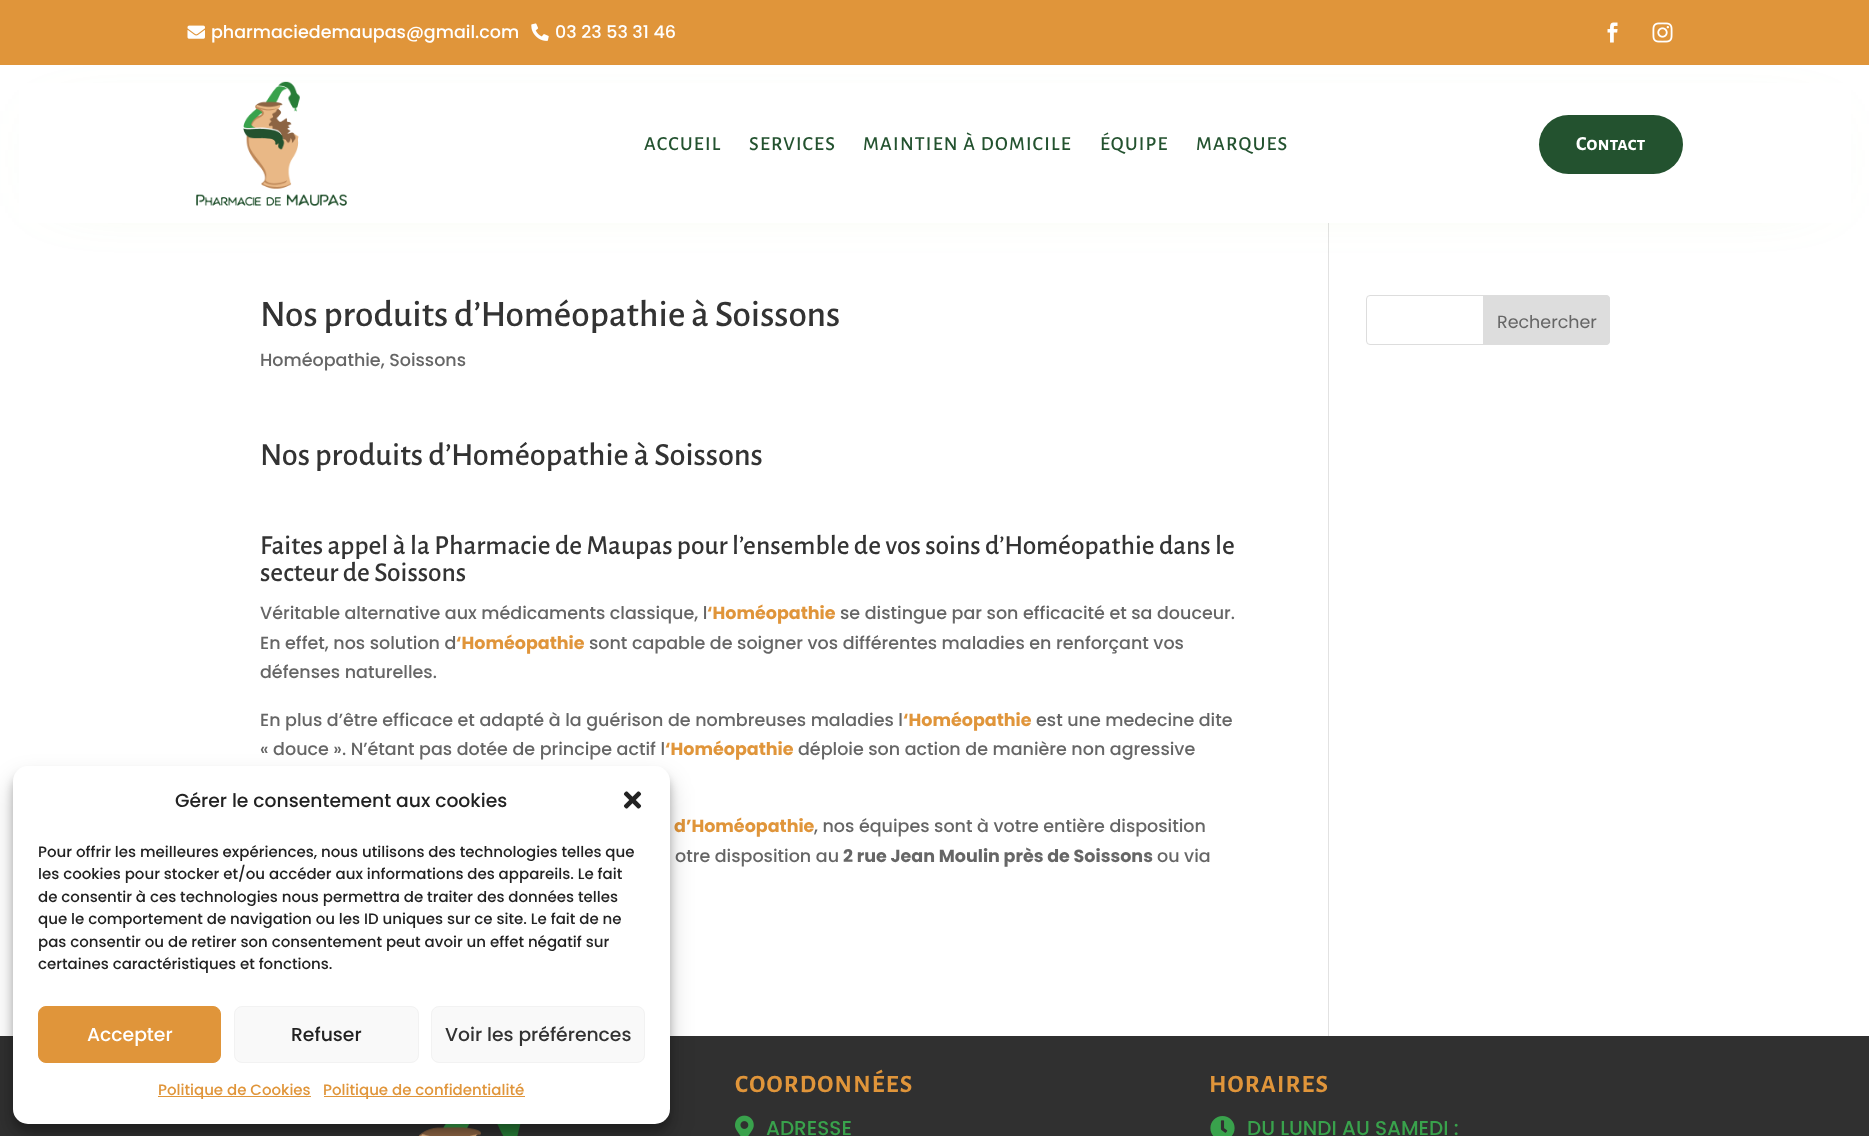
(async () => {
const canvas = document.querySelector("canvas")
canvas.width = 1869
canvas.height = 1136
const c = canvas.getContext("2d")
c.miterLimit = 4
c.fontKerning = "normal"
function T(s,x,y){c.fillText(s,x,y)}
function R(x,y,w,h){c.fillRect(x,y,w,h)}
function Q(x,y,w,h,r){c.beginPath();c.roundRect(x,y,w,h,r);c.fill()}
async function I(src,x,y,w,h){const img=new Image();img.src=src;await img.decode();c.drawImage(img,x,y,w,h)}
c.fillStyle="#fff"
R(0,0,1869,1136)
c.fillStyle="#e0953a"
R(0,0,1869,65)
await I("1.png",187,25,18,14)
c.font="500 17.5px Poppins"
c.fillStyle="#fff"
T("pharmaciedemaupas@gmail.com",211,38)
await I("2.png",531,23,18,18)
T("03 23 53 31 46",555,38)
await I("3.png",1607,22,11,21)
await I("4.png",1652,22,21,21)
c.fillStyle="#e2e2e2"
R(1328,223,1,813)
c.fillStyle="#8cc63f4d"
c.filter="blur(35px)"
c.beginPath()
c.rect(61,141,1748,35)
c.fill()
c.filter="none"
c.fillStyle="#fff"
R(19,83,1832,140)
await I("5.png",196,81,151,125)
c.letterSpacing="1.25px"
c.font="500 20px Alegreya Sans"
c.fillStyle="#23522f"
T("ACCUEIL",644,150)
T("SERVICES",749,150)
T("MAINTIEN À DOMICILE",863,150)
T("ÉQUIPE",1100,150)
T("MARQUES",1196,150)
Q(1539,115,144,59,29.5)
c.letterSpacing="0px"
c.font="bold 20px Alegreya Sans SC"
c.fillStyle="#fff"
T("Contact",1576,150)
c.font="500 37.5px Alegreya Sans"
c.fillStyle="#333"
T("Nos produits d’Homéopathie à Soissons",260,326)
c.font="500 17.5px Poppins"
c.fillStyle="#666"
T("Homéopathie, Soissons",260,366)
c.font="500 32.5px Alegreya Sans"
c.fillStyle="#333"
T("Nos produits d’Homéopathie à Soissons",260,465)
c.font="500 27.5px Alegreya Sans"
T("Faites appel à la Pharmacie de Maupas pour l’ensemble de vos soins d’Homéopathie dans le",260,554)
T("secteur de Soissons",260,581)
c.font="500 17.5px Poppins"
c.fillStyle="#666"
T("Véritable alternative aux médicaments classique, l",260,619)
c.font="bold 17.5px Poppins"
c.fillStyle="#e0953a"
T("‘Homéopathie",707,619)
c.font="500 17.5px Poppins"
c.fillStyle="#666"
T("se distingue par son efficacité et sa douceur.",840,619)
T("En effet, nos solution d",260,649)
c.font="bold 17.5px Poppins"
c.fillStyle="#e0953a"
T("‘Homéopathie",456,649)
c.font="500 17.5px Poppins"
c.fillStyle="#666"
T("sont capable de soigner vos différentes maladies en renforçant vos",589,649)
T("défenses naturelles.",260,678)
T("En plus d’être efficace et adapté à la guérison de nombreuses maladies l",260,726)
c.font="bold 17.5px Poppins"
c.fillStyle="#e0953a"
T("‘Homéopathie",903,726)
c.font="500 17.5px Poppins"
c.fillStyle="#666"
T("est une medecine dite",1036,726)
T("« douce ». N’étant pas dotée de principe actif l",260,755)
c.font="bold 17.5px Poppins"
c.fillStyle="#e0953a"
T("‘Homéopathie",665,755)
c.font="500 17.5px Poppins"
c.fillStyle="#666"
T("déploie son action de manière non agressive",798,755)
c.font="bold 17.5px Poppins"
c.fillStyle="#e0953a"
T("d’Homéopathie",674,832)
c.font="500 17.5px Poppins"
c.fillStyle="#666"
T(", nos équipes sont à votre entière disposition",814,832)
T("otre disposition au",675,862)
c.font="bold 17.5px Poppins"
T("2 rue Jean Moulin près de Soissons",843,862)
c.font="500 17.5px Poppins"
T("ou via",1157,862)
c.beginPath()
c.roundRect(1366.5,295.5,243,49,3.5)
c.strokeStyle="#ddd"
c.stroke()
c.fillStyle="#ddd"
c.beginPath()
c.roundRect(1483.5,295.5,126,49,[0,3.5,3.5,0])
c.fill()
c.stroke()
c.font="17.5px Poppins"
c.fillStyle="#666"
T("Rechercher",1497,328)
c.fillStyle="#303030"
R(0,1036,1869,100)
await I("6.png",418,1124,103,12)
c.letterSpacing="1.25px"
c.font="bold 25px Alegreya Sans"
c.fillStyle="#e0953a"
T("COORDONNÉES",735,1092)
await I("7.png",735,1115,19,21)
c.letterSpacing="0px"
c.font="500 20px Poppins"
c.fillStyle="#39a24c"
T("ADRESSE",766,1135)
c.letterSpacing="1.25px"
c.font="bold 25px Alegreya Sans"
c.fillStyle="#e0953a"
T("HORAIRES",1209,1092)
await I("8.png",1210,1116,25,20)
c.letterSpacing="0px"
c.font="500 20px Poppins"
c.fillStyle="#39a24c"
T("DU LUNDI AU SAMEDI :",1247,1135)
c.fillStyle="#0000003b"
c.filter="blur(4px)"
c.beginPath()
c.roundRect(13,774,657,357,15)
c.fill()
c.filter="none"
c.fillStyle="#00000030"
c.filter="blur(12.5px)"
c.beginPath()
c.roundRect(13,779,657,357,15)
c.fill()
c.filter="none"
c.fillStyle="#fff"
Q(13,766,657,358,15)
c.font="500 18.75px Poppins"
c.fillStyle="#222"
T("Gérer le consentement aux cookies",175,807)
await I("9.png",623,791,19,18)
c.font="500 15px Poppins"
T("Pour offrir les meilleures expériences, nous utilisons des technologies telles que",38,857)
T("les cookies pour stocker et/ou accéder aux informations des appareils. Le fait",38,879)
T("de consentir à ces technologies nous permettra de traiter des données telles",38,902)
T("que le comportement de navigation ou les ID uniques sur ce site. Le fait de ne",38,924)
T("pas consentir ou de retirer son consentement peut avoir un effet négatif sur",38,947)
T("certaines caractéristiques et fonctions.",38,969)
c.fillStyle="#e0953a"
c.beginPath()
c.roundRect(38.5,1006.5,182,56,7.5)
c.fill()
c.strokeStyle="#e0953a"
c.stroke()
c.font="500 18.75px Poppins"
c.fillStyle="#fff"
T("Accepter",87,1041)
c.fillStyle="#f9f9f9"
c.beginPath()
c.roundRect(234.5,1006.5,184,56,7.5)
c.fill()
c.strokeStyle="#f2f2f2"
c.stroke()
c.fillStyle="#222"
T("Refuser",291,1041)
c.fillStyle="#f9f9f9"
c.beginPath()
c.roundRect(431.5,1006.5,213,56,7.5)
c.fill()
c.stroke()
c.fillStyle="#333"
T("Voir les préférences",445,1041)
c.fillStyle="#e0953a"
R(158,1096,153,1)
c.font="500 15px Poppins"
T("Politique de Cookies",158,1095)
R(324,1096,201,1)
T("Politique de confidentialité",323,1095)
})()
